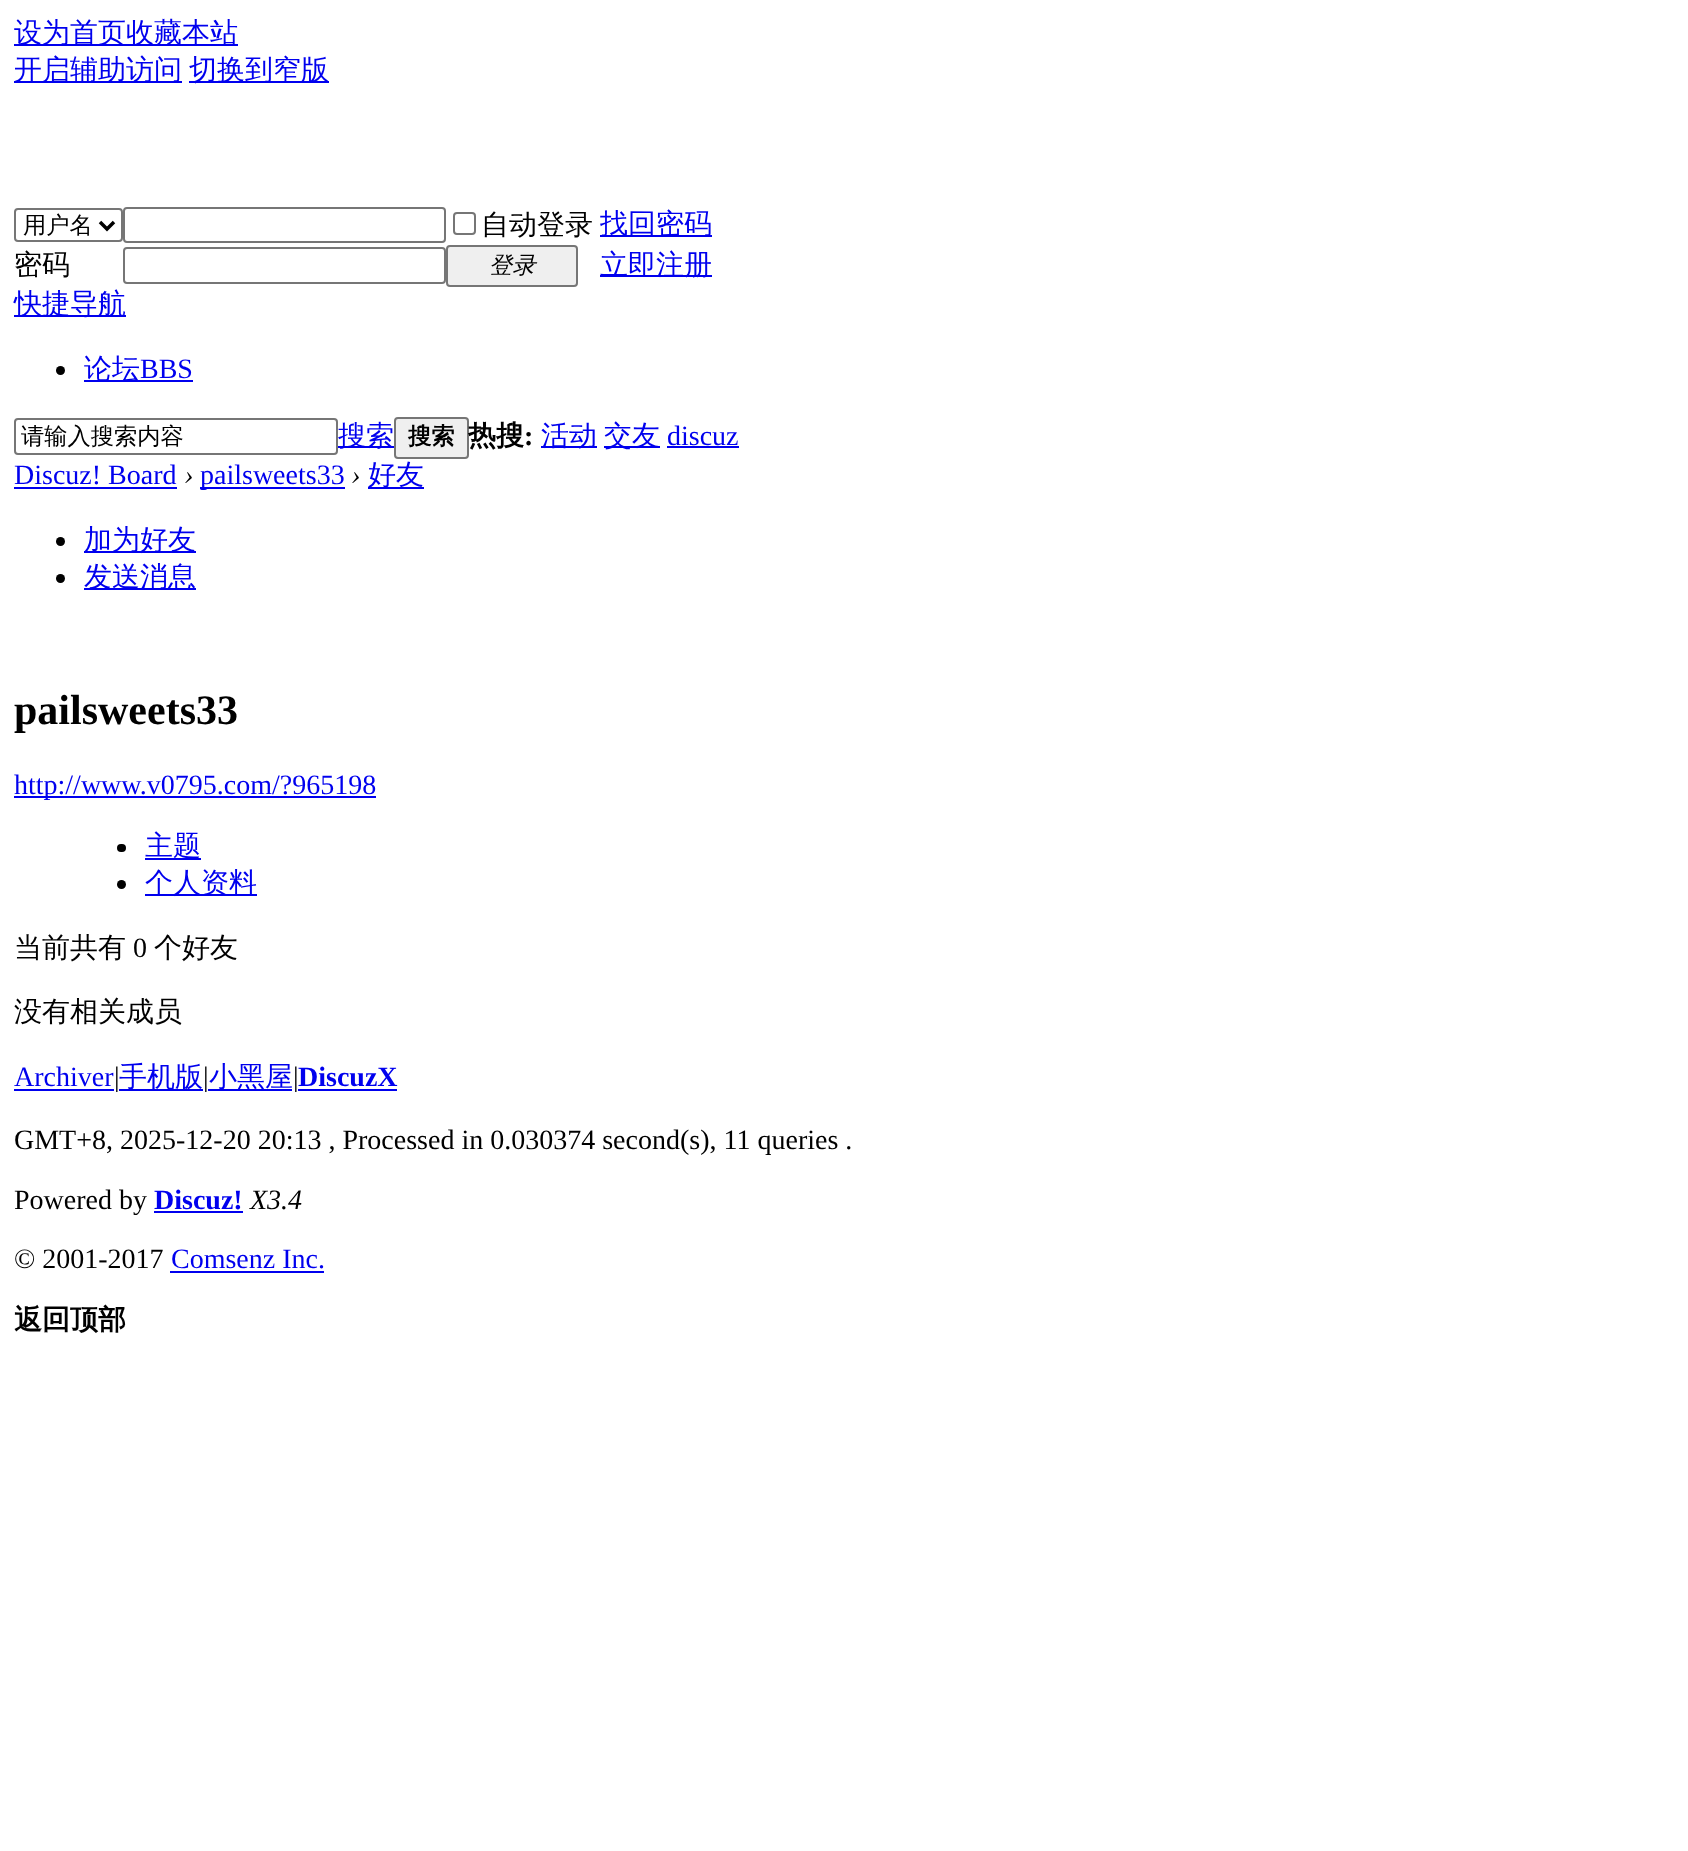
(async () => {
const canvas = document.querySelector("canvas")
canvas.width = 1688
canvas.height = 1851
const c = canvas.getContext("2d")
c.miterLimit = 4
c.fontKerning = "normal"
function T(s,x,y){c.fillText(s,x,y)}
function R(x,y,w,h){c.fillRect(x,y,w,h)}
function Q(x,y,w,h,r){c.beginPath();c.roundRect(x,y,w,h,r);c.fill()}
let path
c.fillStyle="#fff"
R(0,0,1688,1851)
c.fillStyle="#00e"
R(14,44,224,2)
c.font="500 28px WenQuanYi Zen Hei"
T("设为首页收藏本站",14,42)
R(14,81,168,2)
T("开启辅助访问",14,79)
R(189,81,140,2)
T("切换到窄版",189,79)
c.beginPath()
c.roundRect(15,209,107,32,3)
c.strokeStyle="#767676"
c.lineWidth=2
c.stroke()
path = new Path2D("M100 222l7 7l7-7")
c.strokeStyle="#000"
c.lineWidth=3.5
c.stroke(path)
c.font="500 23.25px WenQuanYi Zen Hei"
c.fillStyle="#000"
T("用户名",23,233)
c.beginPath()
c.roundRect(124,208,321,34,3)
c.strokeStyle="#767676"
c.lineWidth=2
c.stroke()
c.beginPath()
c.roundRect(454,213,21,21,3)
c.stroke()
c.font="500 28px WenQuanYi Zen Hei"
T("自动登录",481,234)
c.fillStyle="#00e"
R(600,235,112,2)
T("找回密码",600,233)
c.fillStyle="#000"
T("密码",14,274)
c.beginPath()
c.roundRect(124,248,321,35,3)
c.stroke()
c.fillStyle="#efefef"
c.beginPath()
c.roundRect(447,246,130,40,3)
c.fill()
c.stroke()
c.font="italic 500 23.25px WenQuanYi Zen Hei"
c.fillStyle="#000"
T("登录",489,273)
c.fillStyle="#00e"
R(600,275,112,2)
c.font="500 28px WenQuanYi Zen Hei"
T("立即注册",600,274)
R(14,315,112,2)
T("快捷导航",14,313)
c.fillStyle="#000"
c.beginPath()
c.arc(60.5,370.5,4.5,0,7)
c.fill()
c.fillStyle="#00e"
R(84,380,109,2)
T("论坛",84,378)
c.font="28px Liberation Serif"
T("BBS",140,378)
c.beginPath()
c.roundRect(15,419,322,35,3)
c.stroke()
c.font="500 23.25px WenQuanYi Zen Hei"
c.fillStyle="#000"
T("请输入搜索内容",21,444)
c.fillStyle="#00e"
R(338,446,56,2)
c.font="500 28px WenQuanYi Zen Hei"
T("搜索",338,445)
c.fillStyle="#efefef"
c.beginPath()
c.roundRect(395,418,73,40,3)
c.fill()
c.stroke()
c.font="bold 23.25px WenQuanYi Zen Hei"
c.fillStyle="#000"
T("搜索",408,444)
c.font="bold 28px WenQuanYi Zen Hei"
T("热搜",468,445)
c.font="bold 28px Liberation Serif"
T(":",524,445)
c.fillStyle="#00e"
R(541,446,56,2)
c.font="500 28px WenQuanYi Zen Hei"
T("活动",541,445)
R(604,446,56,2)
T("交友",604,445)
c.font="28px Liberation Serif"
T("discuz",667,445)
R(667,446,72,2)
T("Discuz! Board",14,484)
R(14,487,163,2)
c.font="italic 28px Liberation Serif"
c.fillStyle="#000"
T("›",184,484)
c.fillStyle="#00e"
R(200,487,145,2)
c.font="28px Liberation Serif"
T("pailsweets33",200,484)
c.font="italic 28px Liberation Serif"
c.fillStyle="#000"
T("›",351,484)
c.fillStyle="#00e"
R(368,487,56,2)
c.font="500 28px WenQuanYi Zen Hei"
T("好友",368,484)
c.fillStyle="#000"
c.beginPath()
c.arc(60.5,541.5,4.5,0,7)
c.fill()
c.fillStyle="#00e"
R(84,551,112,2)
T("加为好友",84,549)
c.fillStyle="#000"
c.beginPath()
c.arc(60.5,578.5,4.5,0,7)
c.fill()
c.fillStyle="#00e"
R(84,588,112,2)
T("发送消息",84,586)
c.font="bold 42px Liberation Serif"
c.fillStyle="#000"
T("pailsweets33",14,724)
c.fillStyle="#00e"
R(14,796,362,2)
c.font="28px Liberation Serif"
T("http://www.v0795.com/?965198",14,794)
c.fillStyle="#000"
Q(117,844,9,8,4)
c.fillStyle="#00e"
R(145,858,56,2)
c.font="500 28px WenQuanYi Zen Hei"
T("主题",145,855)
c.fillStyle="#000"
c.beginPath()
c.arc(121.5,884.5,4.5,0,7)
c.fill()
c.fillStyle="#00e"
R(145,894,112,2)
T("个人资料",145,892)
c.fillStyle="#000"
T("当前共有",14,957)
c.font="28px Liberation Serif"
T("0",133,957)
c.font="500 28px WenQuanYi Zen Hei"
T("个好友",154,957)
T("没有相关成员",14,1021)
c.font="28px Liberation Serif"
c.fillStyle="#00e"
T("Archiver",14,1086)
R(14,1089,100,2)
c.fillStyle="#000"
T("|",114,1086)
c.fillStyle="#00e"
R(119,1089,84,2)
c.font="500 28px WenQuanYi Zen Hei"
T("手机版",119,1086)
c.font="28px Liberation Serif"
c.fillStyle="#000"
T("|",203,1086)
c.fillStyle="#00e"
R(208,1089,84,2)
c.font="500 28px WenQuanYi Zen Hei"
T("小黑屋",209,1086)
c.font="28px Liberation Serif"
c.fillStyle="#000"
T("|",293,1086)
c.font="bold 28px Liberation Serif"
c.fillStyle="#00e"
T("DiscuzX",298,1086)
R(298,1089,99,2)
c.font="28px Liberation Serif"
c.fillStyle="#000"
T("GMT+8, 2025-12-20 20:13 , Processed in 0.030374 second(s), 11 queries .",14,1149)
T("Powered by",14,1209)
c.font="bold 28px Liberation Serif"
c.fillStyle="#00e"
T("Discuz!",154,1209)
R(154,1211,89,2)
c.font="italic 28px Liberation Serif"
c.fillStyle="#000"
T("X3.4",250,1209)
c.font="28px Liberation Serif"
T("© 2001-2017",14,1268)
c.fillStyle="#00e"
T("Comsenz Inc.",171,1268)
R(170,1271,154,2)
c.font="bold 28px WenQuanYi Zen Hei"
c.fillStyle="#000"
T("返回顶部",14,1329)
})()
